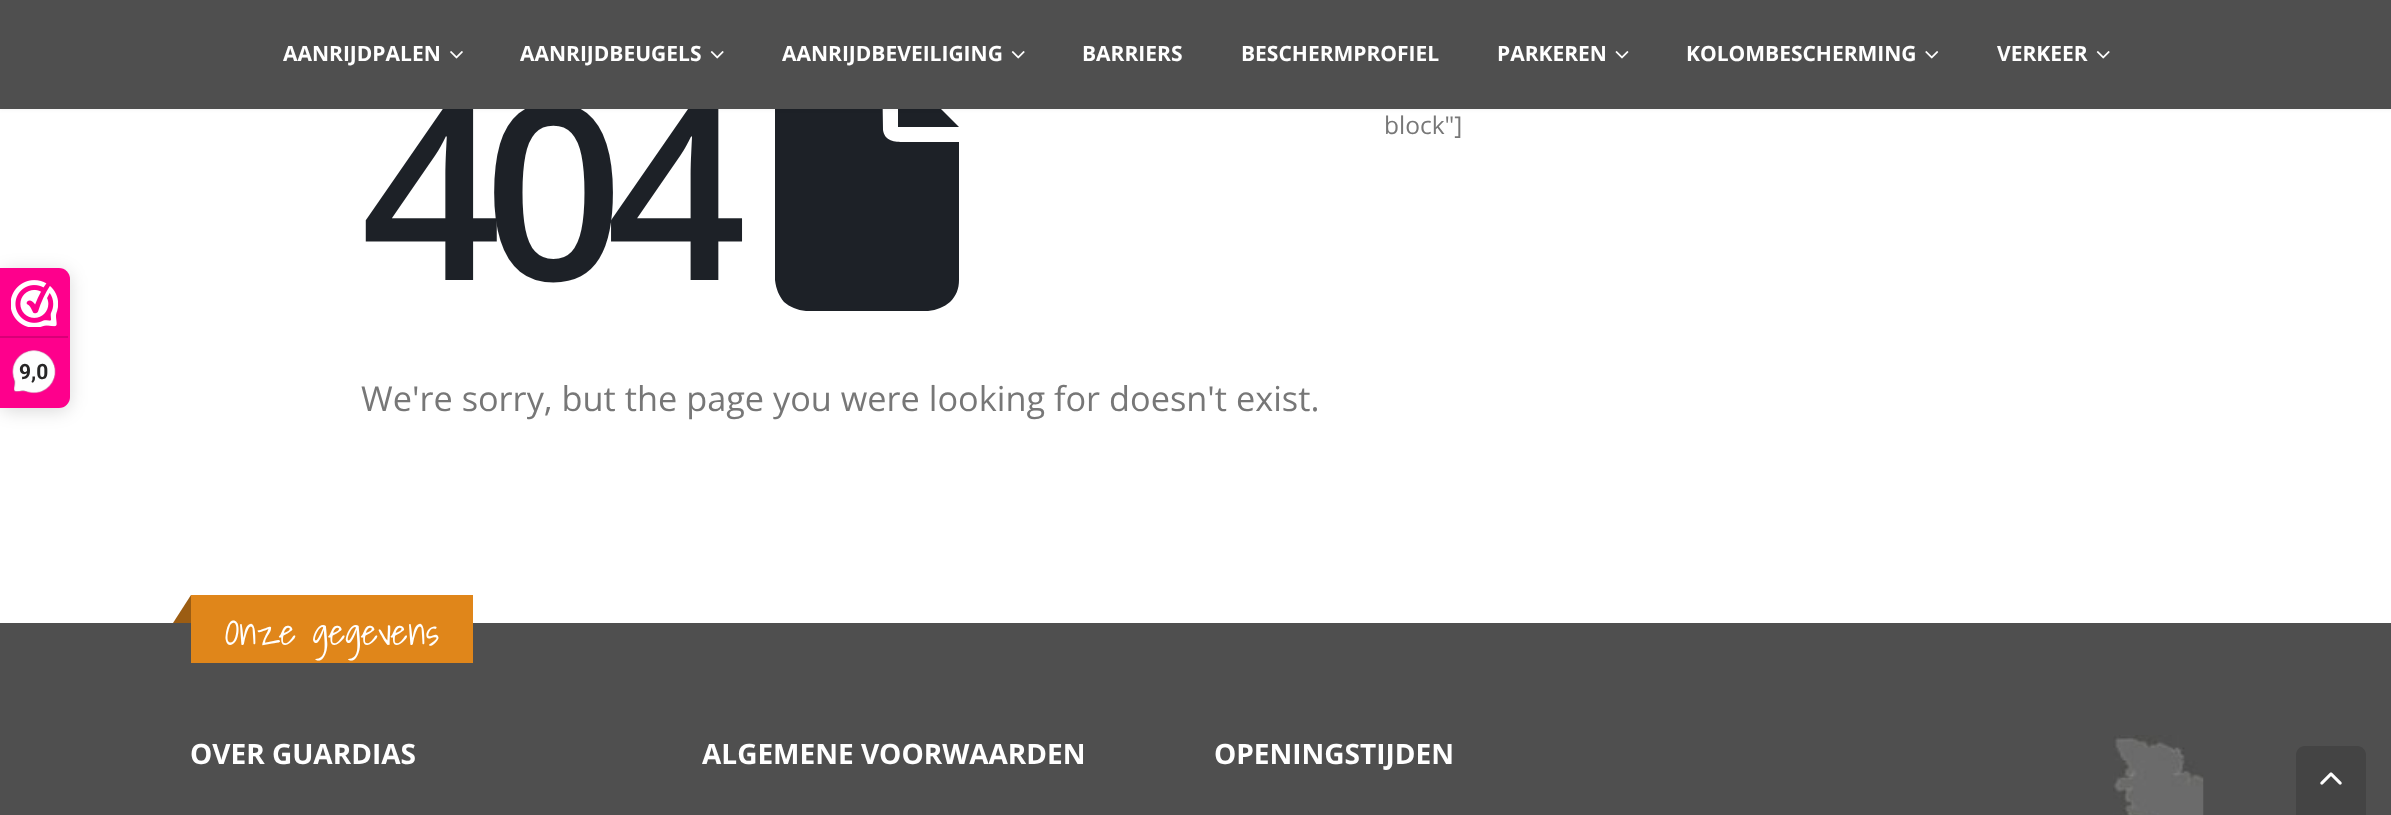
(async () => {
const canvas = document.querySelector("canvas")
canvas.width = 2391
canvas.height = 815
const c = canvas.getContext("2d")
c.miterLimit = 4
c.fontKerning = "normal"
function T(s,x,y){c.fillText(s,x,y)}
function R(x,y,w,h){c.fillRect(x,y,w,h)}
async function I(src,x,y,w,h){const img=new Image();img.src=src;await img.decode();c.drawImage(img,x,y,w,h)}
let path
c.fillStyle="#fff"
R(0,0,2391,815)
c.fillStyle="#00000026"
c.filter="blur(9px)"
c.beginPath()
c.roundRect(0,271,70,140,11)
c.fill()
c.filter="none"
c.fillStyle="#fe008c"
c.beginPath()
c.roundRect(0,268,70,140,[0,11,11,0])
c.fill()
await I("1.png",11,280,47,47)
c.fillStyle="#d80077"
R(0,336,68,2)
await I("2.png",12,350,44,44)
c.font="bold 21px Roboto"
c.fillStyle="#272626"
T("9,0",19,379)
c.fillStyle="#1d2127"
path = new Path2D("M775 96c1-8 4-16 9-21c6-6 13-9 22-9h76l1 64c2 13 15 12 25 12h51v138c0 9-3 16-9 22c-6 5-13 8-22 9h-122c-9-1-16-4-22-9c-5-6-8-13-9-22zm184 31h-61v-61z")
c.fill(path)
c.fillStyle="#0000000f"
c.filter="blur(2.5px)"
c.beginPath()
c.rect(0,0,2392,109)
c.fill()
c.filter="none"
c.letterSpacing="-17.5px"
c.font="600 245px Open Sans"
c.fillStyle="#1d2127"
T("404",361,280)
c.fillStyle="#4f4f4f"
R(0,0,2391,109)
c.letterSpacing="0px"
c.font="bold 21px Open Sans"
c.fillStyle="#fff"
T("AANRIJDPALEN",283,61)
await I("3.png",450,51,13,8)
T("AANRIJDBEUGELS",520,61)
await I("4.png",710,51,14,8)
T("AANRIJDBEVEILIGING",782,61)
await I("4.png",1011,51,14,8)
T("BARRIERS",1082,61)
T("BESCHERMPROFIEL",1241,61)
T("PARKEREN",1497,61)
await I("5.png",1615,51,14,8)
T("KOLOMBESCHERMING",1686,61)
await I("6.png",1925,51,14,8)
T("VERKEER",1997,61)
await I("4.png",2096,51,14,8)
c.font="34.3px Open Sans"
c.fillStyle="#777"
T("We're sorry, but the page you were looking for doesn't exist.",361,411)
c.font="24.5px Open Sans"
T("block\"]",1384,134)
c.fillStyle="#4f4f4f"
R(0,623,2391,192)
c.fillStyle="#e0861a"
R(191,595,282,68)
c.fillStyle="#9c5d13"
path = new Path2D("M191 595v28h-18z")
c.fill(path)
c.font="300 36.5px Shadows Into Light"
c.fillStyle="#fff"
T("Onze gegevens",225,645)
c.font="bold 28px Open Sans"
T("OVER GUARDIAS",190,764)
T("ALGEMENE VOORWAARDEN",702,764)
T("OPENINGSTIJDEN",1214,764)
await I("7.png",2113,735,91,80)
c.fillStyle="#444"
path = new Path2D("M2305 746h52c5 0 9 4 9 9v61h-70v-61c0-5 4-9 9-9z")
c.fill(path)
await I("8.png",2320,772,22,13)
})()
